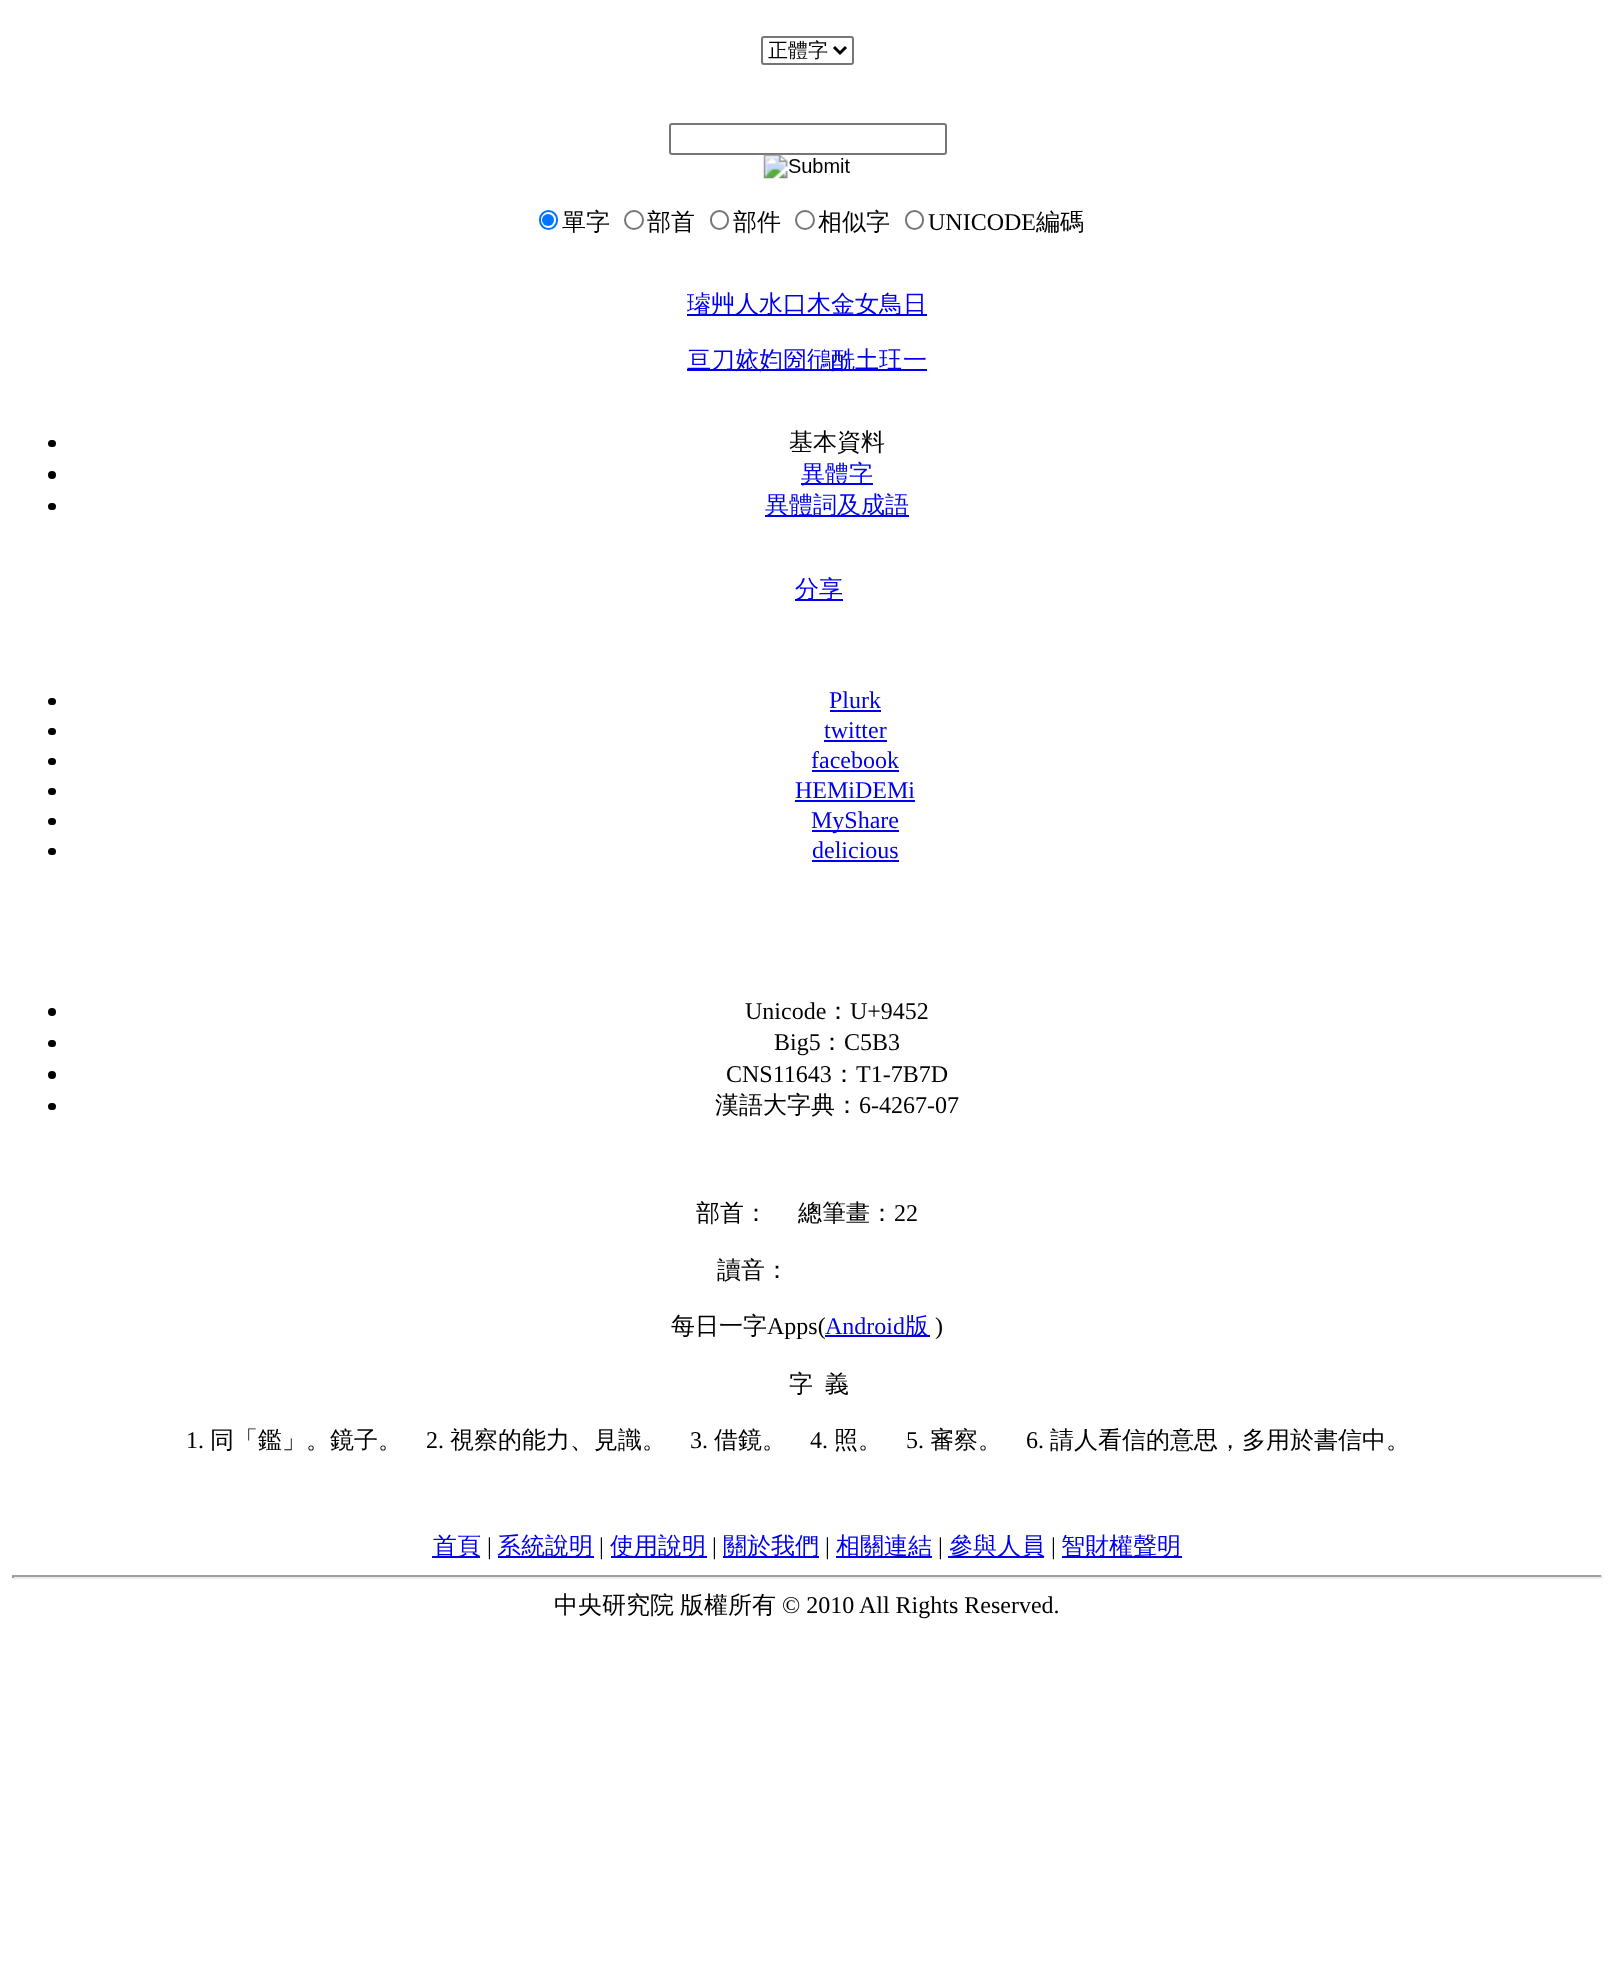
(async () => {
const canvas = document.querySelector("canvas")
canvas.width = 1613
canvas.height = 1968
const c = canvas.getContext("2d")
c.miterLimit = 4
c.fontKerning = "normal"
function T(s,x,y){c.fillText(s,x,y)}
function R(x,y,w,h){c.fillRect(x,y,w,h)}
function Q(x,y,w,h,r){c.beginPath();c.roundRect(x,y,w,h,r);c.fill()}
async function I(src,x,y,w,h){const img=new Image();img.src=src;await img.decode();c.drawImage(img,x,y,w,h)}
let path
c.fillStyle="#fff"
R(0,0,1613,1968)
c.beginPath()
c.roundRect(762,37,91,27,2)
c.strokeStyle="#767676"
c.lineWidth=2
c.stroke()
path = new Path2D("M834 47l6 6l6-6")
c.strokeStyle="#000"
c.lineWidth=3
c.stroke(path)
c.font="500 20px WenQuanYi Zen Hei"
c.fillStyle="#000"
T("正體字",768,57)
c.beginPath()
c.roundRect(670,124,276,30,2)
c.strokeStyle="#767676"
c.lineWidth=2
c.stroke()
await I("1.png",763,154,87,25)
c.beginPath()
c.roundRect(540,211,17,18,8.5)
c.strokeStyle="#0075ff"
c.stroke()
c.fillStyle="#0075ff"
c.beginPath()
c.arc(548,220,6,0,7)
c.fill()
c.font="500 24px WenQuanYi Zen Hei"
c.fillStyle="#000"
T("單字",562,230)
c.beginPath()
c.arc(634,220,9,0,7)
c.strokeStyle="#767676"
c.stroke()
T("部首",647,230)
c.beginPath()
c.roundRect(711,211,17,18,8.5)
c.stroke()
T("部件",733,230)
c.beginPath()
c.arc(805,220,9,0,7)
c.stroke()
T("相似字",818,230)
c.beginPath()
c.roundRect(906,211,17,18,8.5)
c.stroke()
c.font="24px Liberation Serif"
T("UNICODE",928,230)
c.font="500 24px WenQuanYi Zen Hei"
T("編碼",1036,230)
c.fillStyle="#00e"
R(687,314,240,2)
T("璿艸人水口木金女鳥日",687,312)
R(687,369,240,2)
T("亘刀㛄㚬圀鴴酰土玨一",687,368)
c.fillStyle="#000"
Q(48,440,8,7,3.5)
T("基本資料",789,450)
c.beginPath()
c.arc(52,475,4,0,7)
c.fill()
c.fillStyle="#00e"
R(801,483,72,2)
T("異體字",801,482)
c.fillStyle="#000"
Q(48,503,8,7,3.5)
c.fillStyle="#00e"
R(765,515,144,2)
T("異體詞及成語",765,513)
R(795,599,48,2)
T("分享",795,597)
c.fillStyle="#000"
Q(48,698,8,7,3.5)
c.font="24px Liberation Serif"
c.fillStyle="#00e"
T("Plurk",829,708)
R(830,710,51,2)
c.fillStyle="#000"
Q(48,728,8,7,3.5)
c.fillStyle="#00e"
T("twitter",824,738)
R(824,740,63,2)
c.fillStyle="#000"
Q(48,758,8,7,3.5)
c.fillStyle="#00e"
T("facebook",811,768)
R(812,770,87,2)
c.fillStyle="#000"
Q(48,788,8,7,3.5)
c.fillStyle="#00e"
T("HEMiDEMi",795,798)
R(795,800,120,2)
c.fillStyle="#000"
Q(48,818,8,7,3.5)
c.fillStyle="#00e"
R(812,830,87,2)
T("MyShare",811,828)
c.fillStyle="#000"
Q(48,848,8,7,3.5)
c.fillStyle="#00e"
T("delicious",812,858)
R(812,860,87,2)
c.fillStyle="#000"
c.beginPath()
c.arc(52,1012,4,0,7)
c.fill()
T("Unicode",745,1019)
c.font="500 24px WenQuanYi Zen Hei"
T("：",826,1019)
c.font="24px Liberation Serif"
T("U+9452",850,1019)
Q(48,1040,8,7,3.5)
T("Big5",774,1050)
c.font="500 24px WenQuanYi Zen Hei"
T("：",820,1050)
c.font="24px Liberation Serif"
T("C5B3",844,1050)
c.beginPath()
c.arc(52,1075,4,0,7)
c.fill()
T("CNS11643",726,1082)
c.font="500 24px WenQuanYi Zen Hei"
T("：",832,1082)
c.font="24px Liberation Serif"
T("T1-7B7D",856,1082)
Q(48,1103,8,7,3.5)
c.font="500 24px WenQuanYi Zen Hei"
T("漢語大字典：",715,1113)
c.font="24px Liberation Serif"
T("6-4267-07",859,1113)
c.font="500 24px WenQuanYi Zen Hei"
T("部首：",696,1221)
T("總筆畫：",798,1221)
c.font="24px Liberation Serif"
T("22",894,1221)
c.font="500 24px WenQuanYi Zen Hei"
T("讀音：",717,1278)
T("每日一字",671,1334)
c.font="24px Liberation Serif"
T("Apps(",767,1334)
c.fillStyle="#00e"
R(825,1335,105,2)
T("Android",825,1334)
c.font="500 24px WenQuanYi Zen Hei"
T("版",905,1334)
c.font="24px Liberation Serif"
c.fillStyle="#000"
T(")",935,1334)
c.font="500 24px WenQuanYi Zen Hei"
T("字",789,1392)
T("義",825,1392)
c.font="24px Liberation Serif"
T("1.",186,1448)
c.font="500 24px WenQuanYi Zen Hei"
T("同「鑑」。鏡子。",210,1448)
c.font="24px Liberation Serif"
T("2.",426,1448)
c.font="500 24px WenQuanYi Zen Hei"
T("視察的能力、見識。",450,1448)
c.font="24px Liberation Serif"
T("3.",690,1448)
c.font="500 24px WenQuanYi Zen Hei"
T("借鏡。",714,1448)
c.font="24px Liberation Serif"
T("4.",810,1448)
c.font="500 24px WenQuanYi Zen Hei"
T("照。",834,1448)
c.font="24px Liberation Serif"
T("5.",906,1448)
c.font="500 24px WenQuanYi Zen Hei"
T("審察。",930,1448)
c.font="24px Liberation Serif"
T("6.",1026,1448)
c.font="500 24px WenQuanYi Zen Hei"
T("請人看信的意思，多用於書信中。",1050,1448)
c.fillStyle="#00e"
R(432,1556,48,2)
T("首頁",433,1554)
c.font="24px Liberation Serif"
c.fillStyle="#000"
T("|",487,1554)
c.fillStyle="#00e"
R(498,1556,96,2)
c.font="500 24px WenQuanYi Zen Hei"
T("系統說明",497,1554)
c.font="24px Liberation Serif"
c.fillStyle="#000"
T("|",599,1554)
c.fillStyle="#00e"
R(611,1556,96,2)
c.font="500 24px WenQuanYi Zen Hei"
T("使用說明",610,1554)
c.font="24px Liberation Serif"
c.fillStyle="#000"
T("|",712,1554)
c.fillStyle="#00e"
R(723,1556,96,2)
c.font="500 24px WenQuanYi Zen Hei"
T("關於我們",723,1554)
c.font="24px Liberation Serif"
c.fillStyle="#000"
T("|",825,1554)
c.fillStyle="#00e"
R(836,1556,96,2)
c.font="500 24px WenQuanYi Zen Hei"
T("相關連結",836,1554)
c.font="24px Liberation Serif"
c.fillStyle="#000"
T("|",938,1554)
c.fillStyle="#00e"
R(948,1556,96,2)
c.font="500 24px WenQuanYi Zen Hei"
T("參與人員",949,1554)
c.font="24px Liberation Serif"
c.fillStyle="#000"
T("|",1051,1554)
c.fillStyle="#00e"
R(1062,1556,120,2)
c.font="500 24px WenQuanYi Zen Hei"
T("智財權聲明",1061,1554)
c.fillStyle="#9f9f9f"
R(12,1575,1590,2)
c.fillStyle="#eee"
R(1601,1575,2,3)
R(12,1577,1590,2)
c.fillStyle="#9f9f9f"
R(12,1575,2,3)
c.fillStyle="#000"
T("中央研究院",554,1613)
T("版權所有",680,1613)
c.font="24px Liberation Serif"
T("© 2010 All Rights Reserved.",782,1613)
})()
